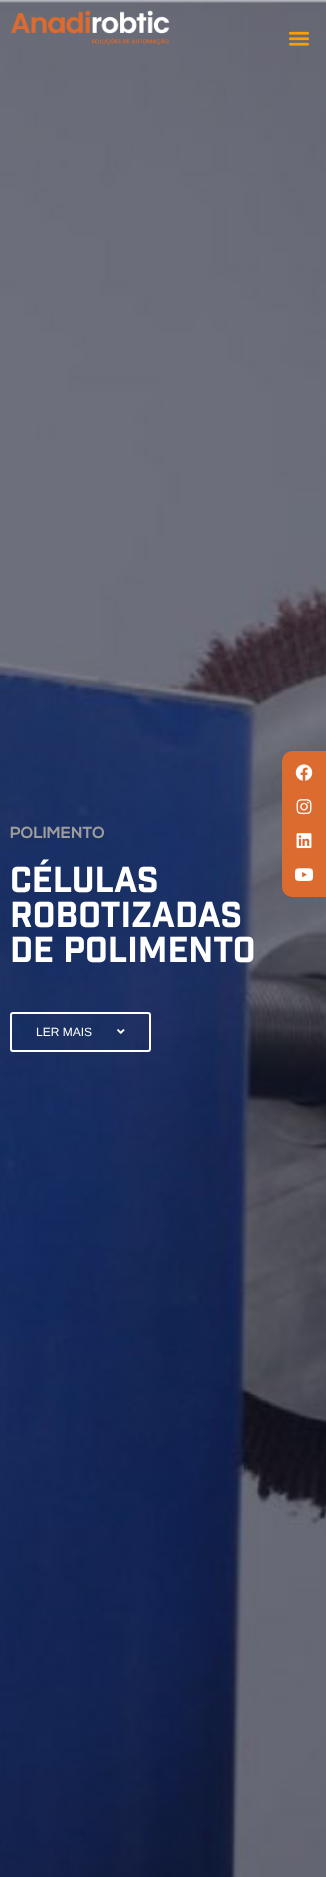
(async () => {
const canvas = document.querySelector("canvas")
canvas.width = 326
canvas.height = 1877
const c = canvas.getContext("2d")
c.miterLimit = 4
c.fontKerning = "normal"
function T(s,x,y){c.fillText(s,x,y)}
function R(x,y,w,h){c.fillRect(x,y,w,h)}
async function I(src,x,y,w,h){const img=new Image();img.src=src;await img.decode();c.drawImage(img,x,y,w,h)}
c.fillStyle="#fff"
R(0,0,326,1877)
await I("3.png",0,0,326,1877)
await I("1.png",10,10,160,35)
await I("2.png",288,31,22,15)
c.font="bold 16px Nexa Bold"
c.fillStyle="#9d9d9c"
T("POLIMENTO",10,838)
c.font="35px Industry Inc"
c.fillStyle="#fff"
T("CÉLULAS",10,892)
T("ROBOTIZADAS",10,927)
T("DE POLIMENTO",10,962)
c.beginPath()
c.roundRect(11,1013,139,38,2)
c.strokeStyle="#fff"
c.lineWidth=2
c.stroke()
c.font="12px Liberation Sans"
T("LER MAIS",36,1036)
await I("4.png",117,1029,8,5)
c.beginPath()
c.roundRect(284.5,753.5,39,141,[7.5,0,0,7.5])
c.strokeStyle="#dc6b2f"
c.lineWidth=5
c.stroke()
c.fillStyle="#dc6b2f"
R(287,756,34,136)
await I("5.png",295,764,18,17)
await I("6.png",296,799,16,16)
await I("7.png",296,833,16,16)
await I("8.png",294,868,20,13)
})()
